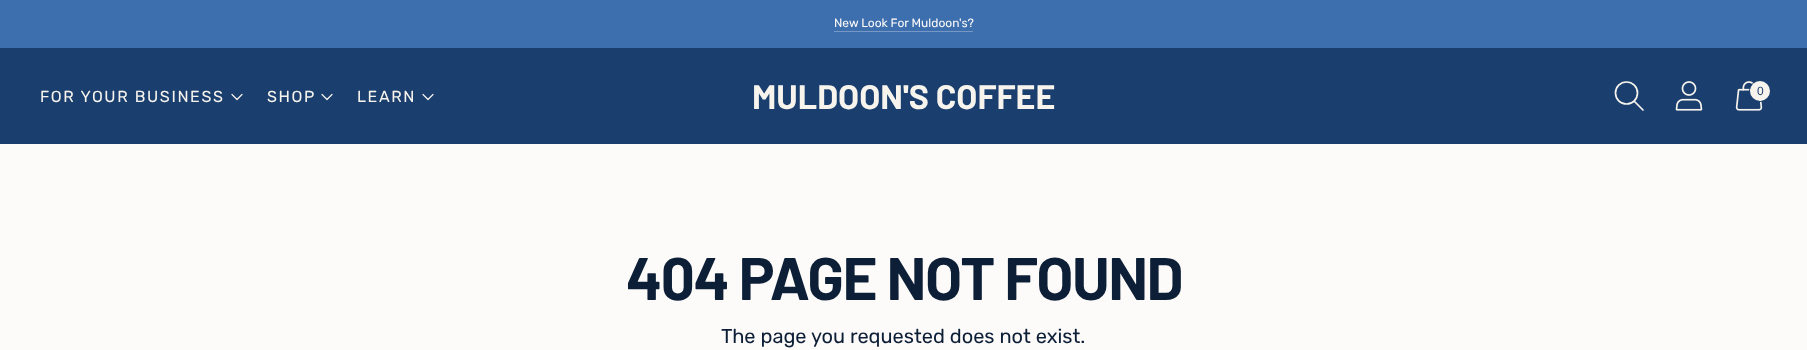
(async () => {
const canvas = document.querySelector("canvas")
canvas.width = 1807
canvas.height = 350
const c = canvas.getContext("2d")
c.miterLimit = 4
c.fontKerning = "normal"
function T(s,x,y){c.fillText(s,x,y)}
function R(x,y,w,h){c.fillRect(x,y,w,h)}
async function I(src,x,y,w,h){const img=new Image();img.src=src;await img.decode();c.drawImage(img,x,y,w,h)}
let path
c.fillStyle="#fdfbf9"
R(0,0,1807,350)
c.fillStyle="#3d6ead"
R(0,0,1807,48)
c.font="12px Rubik"
c.fillStyle="#fdfbf9"
T("New Look For Muldoon's?",834,27)
c.fillStyle="#7798c4"
R(834,31,139,1)
c.fillStyle="#1a3e6d"
R(0,48,1807,96)
c.letterSpacing="1.6px"
c.font="16px Rubik"
c.fillStyle="#f7f4ee"
T("FOR YOUR BUSINESS",40,102)
path = new Path2D("M232 94.5l5 5l5-5")
c.strokeStyle="#f7f4ee"
c.lineWidth=1.2
c.lineCap="round"
c.lineJoin="round"
c.stroke(path)
T("SHOP",267,102)
path = new Path2D("M322 94.5l5 5l5-5")
c.stroke(path)
T("LEARN",357,102)
path = new Path2D("M423 94.5l5 5l5-5")
c.stroke(path)
c.letterSpacing="0px"
c.font="bold 34px Barlow"
T("MULDOON'S COFFEE",752,109)
c.beginPath()
c.arc(1626.5,93,11,0,7)
c.lineWidth=1.7
c.stroke()
path = new Path2D("M1634.5 101.5l8.5 8.5")
c.stroke(path)
await I("1.png",1675,81,28,30)
await I("2.png",1735,81,28,30)
c.beginPath()
c.arc(1760,91,10.5,0,7)
c.strokeStyle="#1a3e6d"
c.lineWidth=1
c.stroke()
c.beginPath()
c.arc(1760,91,10,0,7)
c.fill()
c.font="12px Liberation Sans"
c.fillStyle="#1a3e6d"
T("0",1757,95)
c.letterSpacing="-1.5px"
c.font="bold 60px Barlow"
c.fillStyle="#0d1f36"
T("404 PAGE NOT FOUND",626,300)
c.letterSpacing="0px"
c.font="20px Rubik"
T("The page you requested does not exist.",721,343)
})()
